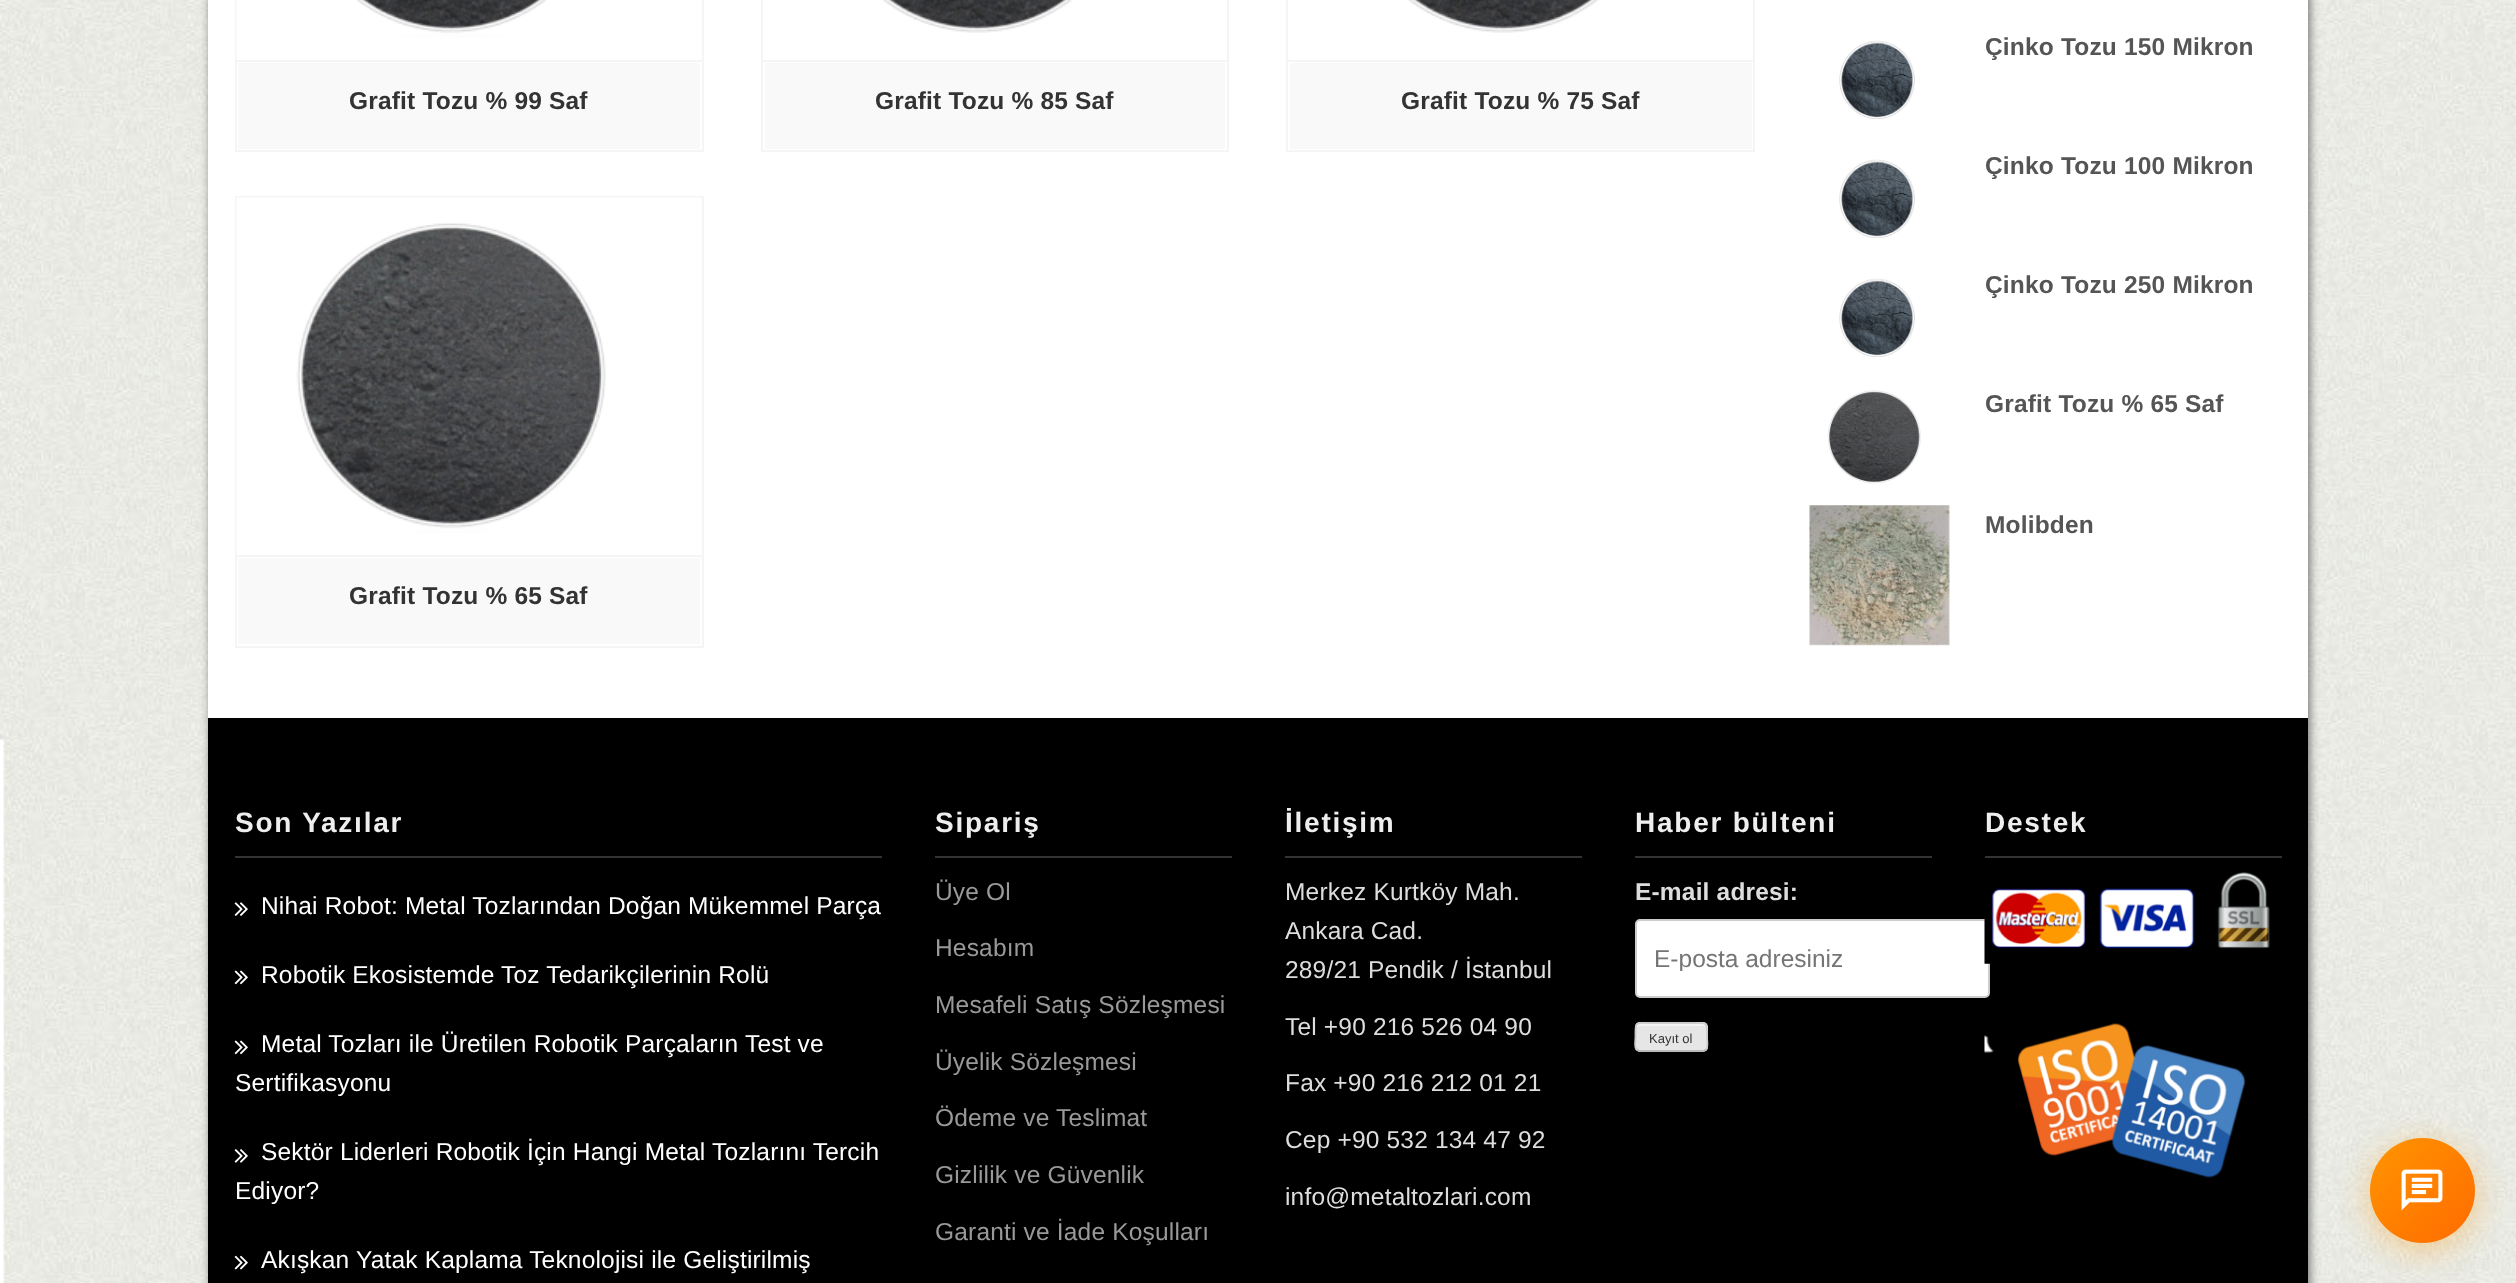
(async () => {
const canvas = document.querySelector("canvas")
canvas.width = 2516
canvas.height = 1283
const c = canvas.getContext("2d")
c.miterLimit = 4
c.fontKerning = "normal"
function T(s,x,y){c.fillText(s,x,y)}
function R(x,y,w,h){c.fillRect(x,y,w,h)}
function Q(x,y,w,h,r){c.beginPath();c.roundRect(x,y,w,h,r);c.fill()}
async function I(src,x,y,w,h){const img=new Image();img.src=src;await img.decode();c.drawImage(img,x,y,w,h)}
let gradient, path
c.fillStyle="#fff"
R(0,0,2516,1283)
await I("1.png",0,0,2516,1283)
c.fillStyle="#00000080"
c.filter="blur(5px)"
c.beginPath()
c.rect(210,-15,2100,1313)
c.fill()
c.filter="none"
c.fillStyle="#fff"
R(208,0,2100,718)
c.strokeStyle="#f5f5f5"
c.lineWidth=2
c.strokeRect(236,-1,467,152)
c.fillStyle="#f5f5f5"
R(236,60,466,2)
await I("2.png",236,0,311,59)
c.fillStyle="#f9f9f9"
R(238,63,462,86)
c.letterSpacing="0.18px"
c.font="bold 24.5px Liberation Sans"
c.fillStyle="#333"
T("Grafit Tozu % 99 Saf",349,109)
c.strokeRect(762,-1,466,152)
c.fillStyle="#f5f5f5"
R(763,60,464,2)
await I("3.png",882,0,191,33)
c.fillStyle="#f9f9f9"
R(765,63,460,86)
c.fillStyle="#333"
T("Grafit Tozu % 85 Saf",875,109)
c.strokeRect(1287,-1,467,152)
c.fillStyle="#f5f5f5"
R(1288,60,466,2)
await I("4.png",1407,0,192,33)
c.fillStyle="#f9f9f9"
R(1290,63,462,86)
c.fillStyle="#333"
T("Grafit Tozu % 75 Saf",1401,109)
c.strokeRect(236,197,467,450)
c.fillStyle="#f5f5f5"
R(236,555,466,2)
await I("5.png",236,197,465,357)
c.fillStyle="#f9f9f9"
R(238,558,462,86)
c.fillStyle="#333"
T("Grafit Tozu % 65 Saf",349,604)
await I("6.png",1839,40,76,79)
c.fillStyle="#555"
T("Çinko Tozu 150 Mikron",1985,55)
await I("7.png",1839,159,76,79)
T("Çinko Tozu 100 Mikron",1985,174)
await I("7.png",1839,278,76,79)
T("Çinko Tozu 250 Mikron",1985,293)
await I("8.png",1827,390,94,94)
T("Grafit Tozu % 65 Saf",1985,412)
await I("9.png",1809,505,141,141)
T("Molibden",1985,533)
c.fillStyle="#000"
R(208,718,2100,565)
c.fillStyle="#333"
R(235,856,647,2)
c.letterSpacing="1.75px"
c.font="bold 28px Liberation Sans"
c.fillStyle="#eee"
T("Son Yazılar",235,832)
await I("10.png",234,902,14,14)
c.letterSpacing="0.18px"
c.font="24.5px Liberation Sans"
c.fillStyle="#fff"
T("Nihai Robot: Metal Tozlarından Doğan Mükemmel Parça",261,914)
await I("11.png",234,970,14,15)
T("Robotik Ekosistemde Toz Tedarikçilerinin Rolü",261,983)
await I("11.png",234,1040,14,15)
T("Metal Tozları ile Üretilen Robotik Parçaların Test ve",261,1052)
T("Sertifikasyonu",235,1091)
await I("12.png",234,1149,14,14)
T("Sektör Liderleri Robotik İçin Hangi Metal Tozlarını Tercih",261,1160)
T("Ediyor?",235,1199)
await I("13.png",234,1255,14,15)
T("Akışkan Yatak Kaplama Teknolojisi ile Geliştirilmiş",261,1268)
c.fillStyle="#333"
R(935,856,297,2)
c.letterSpacing="1.75px"
c.font="bold 28px Liberation Sans"
c.fillStyle="#eee"
T("Sipariş",935,832)
c.letterSpacing="0.18px"
c.font="24.5px Liberation Sans"
c.fillStyle="#999"
T("Üye Ol",935,900)
T("Hesabım",935,956)
T("Mesafeli Satış Sözleşmesi",935,1013)
T("Üyelik Sözleşmesi",935,1070)
T("Ödeme ve Teslimat",935,1126)
T("Gizlilik ve Güvenlik",935,1183)
T("Garanti ve İade Koşulları",935,1240)
c.fillStyle="#333"
R(1285,856,297,2)
c.letterSpacing="1.75px"
c.font="bold 28px Liberation Sans"
c.fillStyle="#eee"
T("İletişim",1285,832)
c.letterSpacing="0.18px"
c.font="24.5px Liberation Sans"
c.fillStyle="#ddd"
T("Merkez Kurtköy Mah.",1285,900)
T("Ankara Cad.",1285,939)
T("289/21 Pendik / İstanbul",1285,978)
T("Tel +90 216 526 04 90",1285,1035)
T("Fax +90 216 212 01 21",1285,1091)
T("Cep +90 532 134 47 92",1285,1148)
T("info@metaltozlari.com",1285,1205)
c.fillStyle="#333"
R(1635,856,297,2)
c.letterSpacing="1.75px"
c.font="bold 28px Liberation Sans"
c.fillStyle="#eee"
T("Haber bülteni",1635,832)
c.letterSpacing="0.18px"
c.font="bold 24.5px Liberation Sans"
c.fillStyle="#ddd"
T("E-mail adresi:",1635,900)
c.fillStyle="#fff"
c.beginPath()
c.roundRect(1636,920,353,77,4)
c.fill()
c.strokeStyle="#ccc"
c.stroke()
c.save()
c.beginPath()
c.rect(1654,943,317,28)
c.clip()
c.letterSpacing="0px"
c.font="24.5px Liberation Sans"
c.fillStyle="#757575"
T("E-posta adresiniz",1654,967)
c.restore()
c.fillStyle="#e6e6e6"
Q(1635,1022,73,30,5)
c.fillStyle="#f3f3f3"
path = new Path2D("M1640 1026h64c1 0 2 1 2 2c0-6-12-4-14-4h-42c-7 0-14-3-14 6c0-2 2-4 4-4z")
c.fill(path)
path = new Path2D("M1706 1049.5l-3 1.5h-63.5l-3-1.5")
c.strokeStyle="#bbb"
c.lineWidth=1.8
c.stroke(path)
path = new Path2D("M1636.5 1049.5c-2.5-2.5-1-9.5-1-12.5c0-15.5-1.5-14 14.5-14h42c16.5 0 15-1.5 15 14c0 3 1.5 10-1 12.5")
c.strokeStyle="#ccc"
c.stroke(path)
c.letterSpacing="0px"
c.font="13px Liberation Sans"
c.fillStyle="#333"
T("Kayıt ol",1649,1043)
R(1985,856,297,2)
c.letterSpacing="1.75px"
c.font="bold 28px Liberation Sans"
c.fillStyle="#eee"
T("Destek",1985,832)
await I("14.png",1984,872,286,92)
await I("15.png",1984,1023,262,155)
c.fillStyle="#ff950066"
c.filter="blur(17.5px)"
c.beginPath()
c.roundRect(2370,1145,105,105,52.5)
c.fill()
c.filter="none"
gradient = c.createLinearGradient(2370,1138,2475,1243)
gradient.addColorStop(0,"#ff9500")
gradient.addColorStop(1,"#ff6b00")
c.fillStyle = gradient
c.beginPath()
c.arc(2422.5,1190.5,52.5,0,7)
c.fill()
await I("16.png",2401,1169,42,42)
})()
